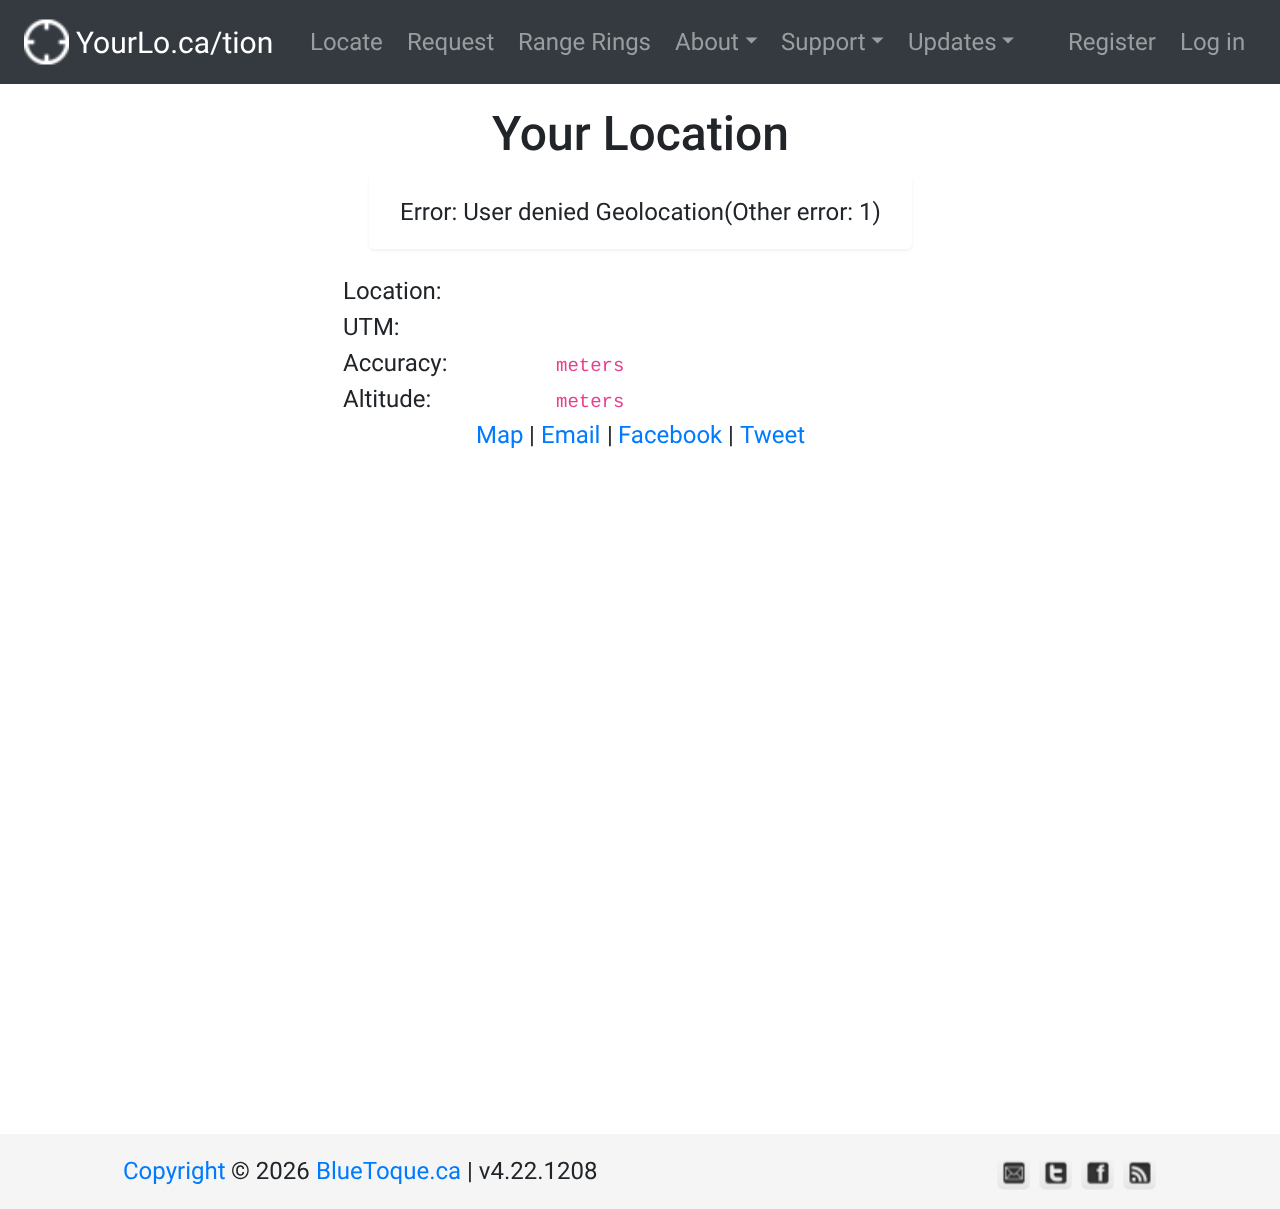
(async () => {
const canvas = document.querySelector("canvas")
canvas.width = 1280
canvas.height = 1209
const c = canvas.getContext("2d")
c.miterLimit = 4
c.fontKerning = "normal"
function T(s,x,y){c.fillText(s,x,y)}
function R(x,y,w,h){c.fillRect(x,y,w,h)}
async function I(src,x,y,w,h){const img=new Image();img.src=src;await img.decode();c.drawImage(img,x,y,w,h)}
let path
c.fillStyle="#fff"
R(0,0,1280,1209)
c.fillStyle="#343a40"
R(0,0,1280,84)
await I("1.png",24,19,45,46)
c.font="30px Roboto"
c.fillStyle="#fff"
T("YourLo.ca/tion",76,53)
c.font="24px Roboto"
c.fillStyle="#9a9da0"
T("Locate",310,50)
T("Request",407,50)
T("Range Rings",518,50)
T("About",675,50)
path = new Path2D("M745.5 37.5h12l-6 6z")
c.fill(path)
T("Support",781,50)
path = new Path2D("M871.5 37.5h12l-6 6z")
c.fill(path)
T("Updates",908,50)
path = new Path2D("M1002 37.5h12l-6 6z")
c.fill(path)
T("Register",1068,50)
T("Log in",1180,50)
c.font="500 48px Roboto"
c.fillStyle="#212529"
T("Your Location",492,150)
c.save()
path = new Path2D("M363 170h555v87h-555zm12 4h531c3.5 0 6 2.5 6 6v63c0 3.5-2.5 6-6 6h-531c-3.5 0-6-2.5-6-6v-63c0-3.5 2.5-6 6-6z")
c.clip(path,"evenodd")
c.fillStyle="#0000000d"
c.filter="blur(1.5px)"
c.beginPath()
c.roundRect(369,176,543,75,6)
c.fill()
c.filter="none"
c.restore()
c.font="24px Roboto"
T("Error: User denied Geolocation(Other error: 1)",400,220)
T("Location:",343,299)
T("UTM:",343,335)
T("Accuracy:",343,371)
c.font="19px Liberation Mono"
c.fillStyle="#e83e8c"
T("meters",556,371)
c.font="24px Roboto"
c.fillStyle="#212529"
T("Altitude:",343,407)
c.font="19px Liberation Mono"
c.fillStyle="#e83e8c"
T("meters",556,407)
c.font="24px Roboto"
c.fillStyle="#007bff"
T("Map",476,443)
c.fillStyle="#212529"
T("|",529,443)
c.fillStyle="#007bff"
T("Email",541,443)
c.fillStyle="#212529"
T("|",607,443)
c.fillStyle="#007bff"
T("Facebook",618,443)
c.fillStyle="#212529"
T("|",728,443)
c.fillStyle="#007bff"
T("Tweet",740,443)
c.fillStyle="#f5f5f5"
R(0,1134,1280,75)
c.fillStyle="#007bff"
T("Copyright",123,1179)
c.fillStyle="#212529"
T("© 2026",231,1179)
c.fillStyle="#007bff"
T("BlueToque.ca",316,1179)
c.fillStyle="#212529"
T("| v4.22.1208",467,1179)
await I("2.png",997,1160,33,30)
await I("3.png",1039,1160,33,30)
await I("4.png",1081,1160,33,30)
await I("5.png",1123,1161,33,29)
})()
